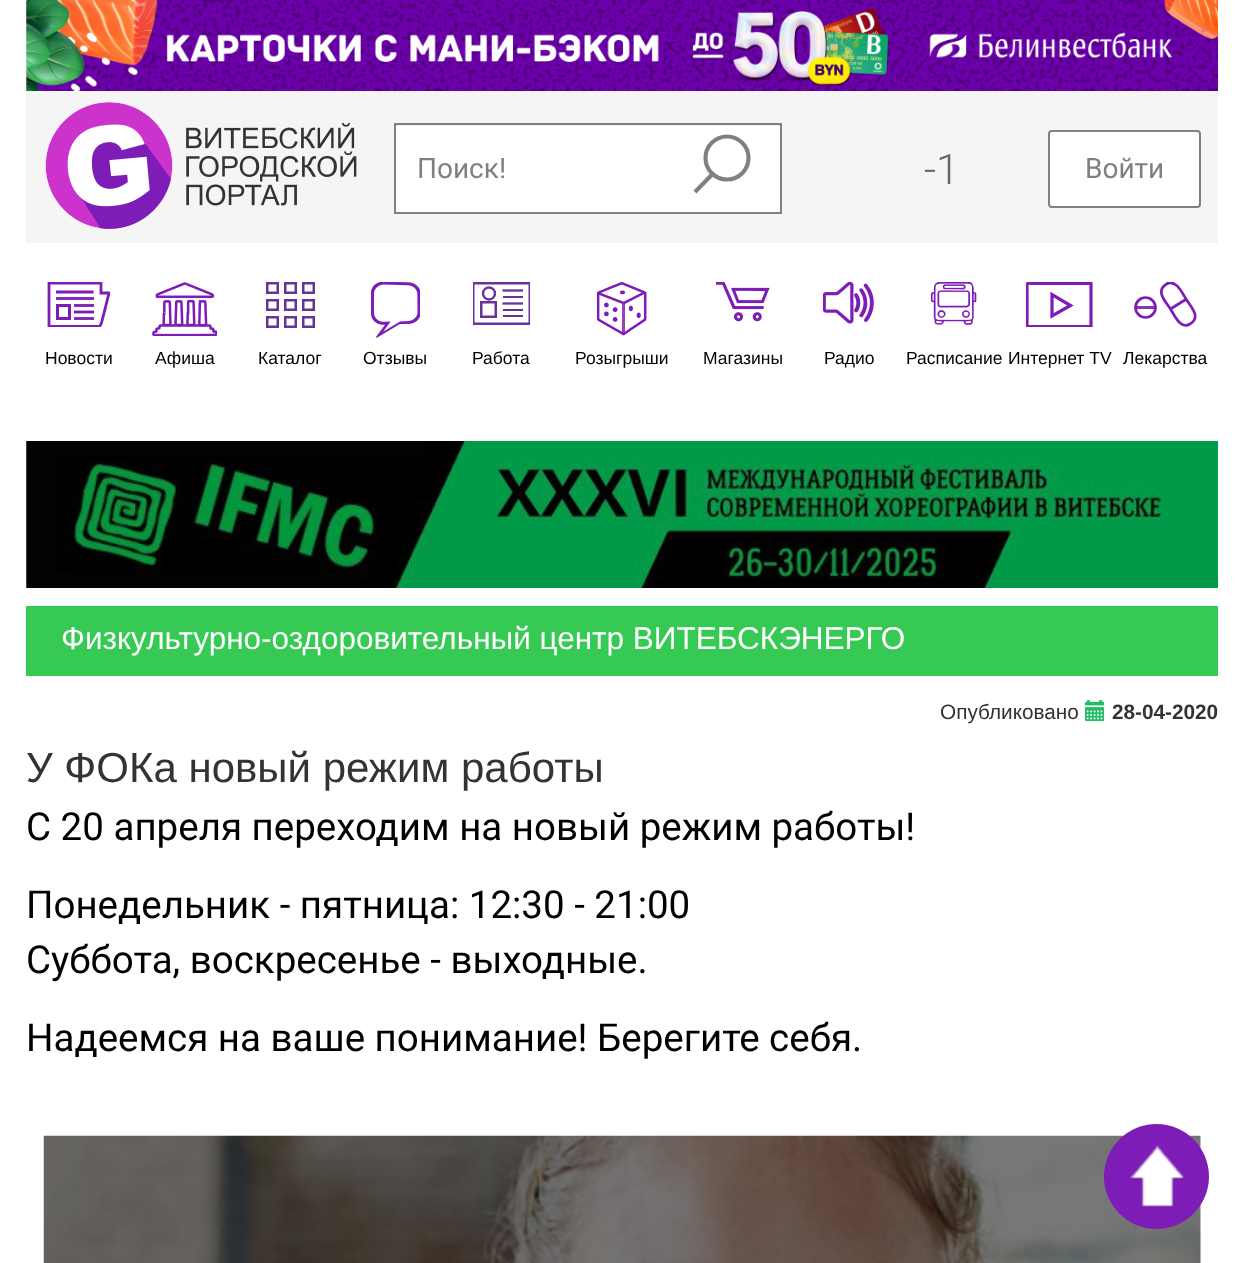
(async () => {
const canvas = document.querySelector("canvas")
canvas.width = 1244
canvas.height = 1263
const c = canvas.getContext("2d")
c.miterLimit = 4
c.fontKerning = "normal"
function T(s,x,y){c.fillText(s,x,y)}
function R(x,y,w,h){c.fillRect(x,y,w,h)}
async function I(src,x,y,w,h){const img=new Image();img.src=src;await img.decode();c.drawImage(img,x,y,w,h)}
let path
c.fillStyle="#fff"
R(0,0,1244,1263)
await I("1.png",26,0,1192,91)
c.fillStyle="#f5f5f5"
R(26,91,1192,152)
await I("2.png",45,102,312,127)
c.fillStyle="#fff"
R(396,126,384,86)
c.fillStyle="#ececec"
R(396,125,385,1)
c.strokeStyle="#808080"
c.lineWidth=2
c.strokeRect(395,124,386,89)
c.font="28px Roboto"
c.fillStyle="#808080"
T("Поиск!",417,178)
c.beginPath()
c.arc(727,158,21.5,0,7)
c.lineWidth=4.1
c.stroke()
path = new Path2D("M714 172.5l-19 19.5")
c.stroke(path)
c.font="300 42px Roboto"
c.fillStyle="#666"
T("-1",924,184)
c.fillStyle="#fff"
c.beginPath()
c.roundRect(1049,131,151,76,3)
c.fill()
c.lineWidth=2
c.stroke()
c.font="28px Roboto"
c.fillStyle="#808080"
T("Войти",1085,178)
c.save()
c.beginPath()
c.rect(47,282,63,45)
c.clip()
path = new Path2D("M49 283h52v10h8l-5.5 22c-1 3-1.5 9-4 11.5h-50.5z")
c.strokeStyle="#7d1cb6"
c.lineWidth=2.8
c.stroke(path)
c.restore()
path = new Path2D("M56 292h37.5")
c.strokeStyle="#7d1cb6"
c.lineWidth=2.8
c.stroke(path)
c.fillStyle="#862bbb"
R(56,297,38,3)
c.lineWidth=3
c.strokeRect(57.5,305.5,12,13)
R(74,304,20,3)
path = new Path2D("M74 312h20")
c.lineWidth=2.8
c.stroke(path)
R(74,317,20,3)
c.font="17.5px Liberation Sans"
c.fillStyle="#000"
T("Новости",45,364)
await I("3.png",152,282,65,54)
T("Афиша",155,364)
c.strokeStyle="#639"
c.lineWidth=2.5
c.strokeRect(267.25,283.25,10.5,9.5)
c.strokeRect(285.25,283.25,10.5,9.5)
c.strokeRect(303.25,283.25,10.5,9.5)
c.strokeRect(267.25,300.25,10.5,9.5)
c.strokeRect(285.25,300.25,10.5,9.5)
c.strokeRect(303.25,300.25,10.5,9.5)
c.strokeRect(267.25,317.25,10.5,9.5)
c.strokeRect(285.25,317.25,10.5,9.5)
c.strokeRect(303.25,317.25,10.5,9.5)
T("Каталог",258,364)
await I("4.png",371,282,49,56)
T("Отзывы",363,364)
c.beginPath()
c.arc(489,293.5,6,0,7)
c.lineWidth=2.4
c.stroke()
c.save()
c.beginPath()
c.rect(473,282,57,44)
c.clip()
c.lineWidth=2.5
c.strokeRect(473.25,283.25,56.5,40.5)
c.restore()
path = new Path2D("M502.5 290.5h20.5")
c.lineWidth=2.3
c.stroke(path)
c.fillStyle="#639"
R(503,296,20,2)
c.lineWidth=2.5
c.strokeRect(481.25,302.25,14.5,14.5)
path = new Path2D("M502.5 303.5h20.5")
c.lineWidth=2.3
c.stroke(path)
R(503,309,20,2)
R(503,315,20,2)
c.fillStyle="#000"
T("Работа",472,364)
await I("5.png",597,282,50,54)
T("Розыгрыши",575,364)
await I("6.png",716,282,54,40)
T("Магазины",703,364)
await I("7.png",823,282,51,42)
T("Радио",824,364)
await I("8.png",931,282,46,43)
T("Расписание",906,364)
c.save()
c.beginPath()
c.rect(1026,282,68,45)
c.clip()
path = new Path2D("M1091 326.5h-54.5c-10.5 0-9.5 2-9.5-6.5v-30c0-9-1-6.5 9.5-6.5h54.5z")
c.strokeStyle="#7d1cb6"
c.lineWidth=3.2
c.stroke(path)
c.restore()
path = new Path2D("M1052 316v-21.5l18.5 11z")
c.strokeStyle="#7d1cb6"
c.lineWidth=3.2
c.stroke(path)
T("Интернет TV",1008,364)
c.fillStyle="#8a33bd"
R(1136,306,20,3)
c.beginPath()
c.arc(1145.5,307.5,10,0,7)
c.lineWidth=2.7
c.stroke()
c.save()
c.beginPath()
c.rect(1134,282,63,45)
c.clip()
path = new Path2D("M1190 324c-9.5 6-16-9.5-19.5-15c-5-7.5-15.5-18-4-25c9.5-5.5 16 9.5 19.5 15c5 8 15.5 18 4 25z")
c.stroke(path)
c.restore()
path = new Path2D("M1186.5 299l-16 10")
c.stroke(path)
c.fillStyle="#000"
T("Лекарства",1123,364)
await I("9.png",26,441,1192,147)
c.fillStyle="#36ca55"
R(26,606,1192,70)
c.font="31.5px Liberation Sans"
c.fillStyle="#fff"
T("Физкультурно-оздоровительный центр ВИТЕБСКЭНЕРГО",61,649)
c.font="20.75px Liberation Sans"
c.fillStyle="#333"
T("Опубликовано",940,719)
await I("10.png",1085,700,20,21)
c.font="bold 20.75px Liberation Sans"
T("28-04-2020",1112,719)
c.font="42px Liberation Sans"
T("У ФОКа новый режим работы",26,782)
c.font="38.5px Roboto"
c.fillStyle="#000"
T("С 20 апреля переходим на новый режим работы!",26,840)
T("Понедельник - пятница: 12:30 - 21:00",26,918)
T("Суббота, воскресенье - выходные.",26,973)
T("Надеемся на ваше понимание! Берегите себя.",26,1051)
await I("11.png",43,1135,1158,128)
c.fillStyle="#7d1cb6"
c.beginPath()
c.arc(1156.5,1176.5,52.5,0,7)
c.fill()
await I("12.png",1130,1145,54,62)
})()
